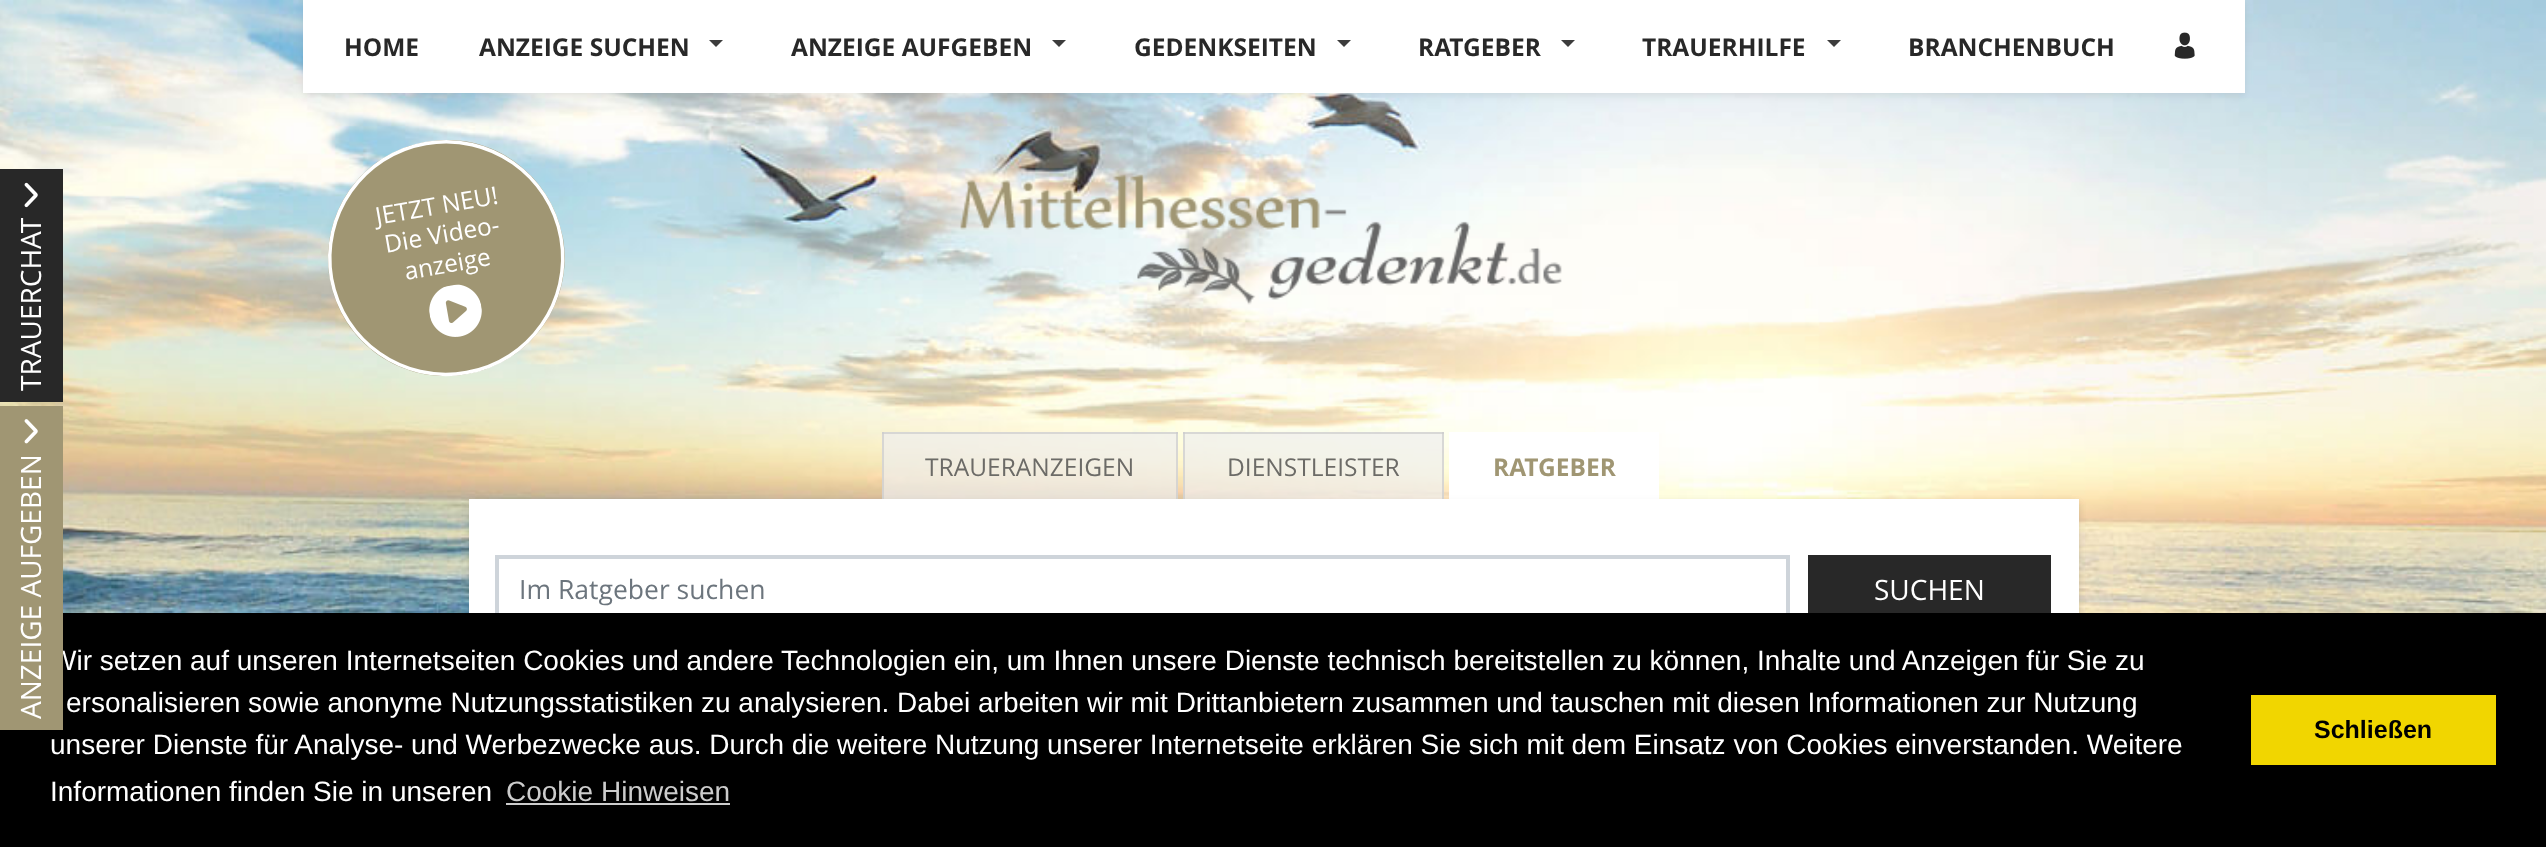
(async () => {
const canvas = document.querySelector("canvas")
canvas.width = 2546
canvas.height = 847
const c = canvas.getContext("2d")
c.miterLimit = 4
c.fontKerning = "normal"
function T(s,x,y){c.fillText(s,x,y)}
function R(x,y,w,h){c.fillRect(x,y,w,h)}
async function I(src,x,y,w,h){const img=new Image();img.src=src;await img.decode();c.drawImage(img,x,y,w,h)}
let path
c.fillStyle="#fff"
R(0,0,2546,847)
await I("4.png",0,0,2546,613)
c.fillStyle="#00000012"
c.filter="blur(3.5px)"
c.beginPath()
c.rect(303,4,1942,92)
c.fill()
c.filter="none"
c.fillStyle="#fff"
R(303,0,1942,93)
c.font="bold 24.5px Open Sans"
c.fillStyle="#282828"
T("HOME",344,56)
T("ANZEIGE SUCHEN",479,56)
c.fillStyle="#3c3c3c"
path = new Path2D("M709 40h14l-7 7z")
c.fill(path)
c.fillStyle="#282828"
T("ANZEIGE AUFGEBEN",791,56)
c.fillStyle="#3c3c3c"
path = new Path2D("M1052 40h14l-7 7z")
c.fill(path)
c.fillStyle="#282828"
T("GEDENKSEITEN",1134,56)
c.fillStyle="#3c3c3c"
path = new Path2D("M1337 40h14l-7 7z")
c.fill(path)
c.fillStyle="#282828"
T("RATGEBER",1418,56)
c.fillStyle="#3c3c3c"
path = new Path2D("M1561 40h14l-7 7z")
c.fill(path)
c.fillStyle="#282828"
T("TRAUERHILFE",1642,56)
c.fillStyle="#3c3c3c"
path = new Path2D("M1827 40h14l-7 7z")
c.fill(path)
c.fillStyle="#282828"
T("BRANCHENBUCH",1908,56)
await I("1.png",2174,32,21,27)
R(0,169,63,233)
await I("2.png",24,182,14,26)
c.font="28px Open Sans"
c.fillStyle="#fff"
c.save()
c.translate(41,391)
c.rotate(-90 * Math.PI / 180)
c.fillText("TRAUERCHAT",0,0)
c.restore()
c.fillStyle="#00000012"
c.filter="blur(3.5px)"
c.beginPath()
c.rect(469,502,1610,195)
c.fill()
c.filter="none"
c.fillStyle="#eeeeeeb3"
R(882,432,296,67)
c.fillStyle="#ccccccb3"
R(882,432,296,2)
R(1176,432,2,67)
R(882,432,2,67)
c.fillStyle="#eeeeeeb3"
R(1183,432,261,67)
c.fillStyle="#ccccccb3"
R(1183,432,261,2)
R(1442,432,2,67)
R(1183,432,2,67)
c.fillStyle="#fff"
R(1449,432,210,67)
R(469,499,1610,114)
c.save()
path = new Path2D("M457 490h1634v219h-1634zm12 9h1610v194h-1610z")
c.clip(path,"evenodd")
c.fillStyle="#00000012"
c.filter="blur(3.5px)"
c.beginPath()
c.rect(469,502,1610,195)
c.fill()
c.filter="none"
c.restore()
c.strokeStyle="#ced4da"
c.lineWidth=4
c.strokeRect(497,557,1291,64)
c.fillStyle="#000"
R(0,613,2546,234)
c.font="28px Liberation Sans"
c.fillStyle="#fff"
T("Wir setzen auf unseren Internetseiten Cookies und andere Technologien ein, um Ihnen unsere Dienste technisch bereitstellen zu können, Inhalte und Anzeigen für Sie zu",50,670)
c.fillStyle="#a09673"
R(0,406,63,324)
await I("3.png",24,419,14,25)
c.font="28px Open Sans"
c.fillStyle="#fff"
c.save()
c.translate(41,719)
c.rotate(-90 * Math.PI / 180)
c.fillText("ANZEIGE AUFGEBEN",0,0)
c.restore()
c.fillStyle="#a09673"
path = new Path2D("M426 142c64-12 125 31 137 96c11 64-32 125-96 136c-64 12-126-31-137-95c-11-65 31-126 96-137z")
c.fill(path)
path = new Path2D("M426 143.5c63.5-11 123.5 31 135 94.5c11 63-31 123.5-94.5 134.5c-63.5 11.5-123.5-31-135-94c-11-63.5 31-124 94.5-135z")
c.strokeStyle="#fff"
c.lineWidth=3.5
c.stroke(path)
c.font="24.5px Open Sans"
c.fillStyle="#fff"
c.save()
c.translate(377,225)
c.rotate(-10 * Math.PI / 180)
c.fillText("JETZT NEU!",0,0)
c.restore()
c.save()
c.translate(386,253)
c.rotate(-10 * Math.PI / 180)
c.fillText("Die Video-",0,0)
c.restore()
c.save()
c.translate(406,280)
c.rotate(-10 * Math.PI / 180)
c.fillText("anzeige",0,0)
c.restore()
await I("5.png",429,284,53,53)
await I("6.png",960,174,602,131)
c.fillStyle="#6c6b67"
T("TRAUERANZEIGEN",925,476)
T("DIENSTLEISTER",1227,476)
c.font="bold 24.5px Open Sans"
c.fillStyle="#a09673"
T("RATGEBER",1493,476)
c.font="26.5px Open Sans"
c.fillStyle="#6c757d"
T("Im Ratgeber suchen",519,599)
c.fillStyle="#282828"
R(1808,555,243,58)
c.font="28px Open Sans"
c.fillStyle="#fff"
T("SUCHEN",1874,600)
c.font="28px Liberation Sans"
T("ersonalisieren sowie anonyme Nutzungsstatistiken zu analysieren. Dabei arbeiten wir mit Drittanbietern zusammen und tauschen mit diesen Informationen zur Nutzung",66,712)
T("unserer Dienste für Analyse- und Werbezwecke aus. Durch die weitere Nutzung unserer Internetseite erklären Sie sich mit dem Einsatz von Cookies einverstanden. Weitere",50,754)
T("Informationen finden Sie in unseren",50,801)
c.fillStyle="#ccc"
T("Cookie Hinweisen",506,801)
R(506,803,224,2)
c.fillStyle="#f1d600"
R(2251,695,245,70)
c.font="bold 25px Liberation Sans"
c.fillStyle="#000"
T("Schließen",2314,738)
})()
